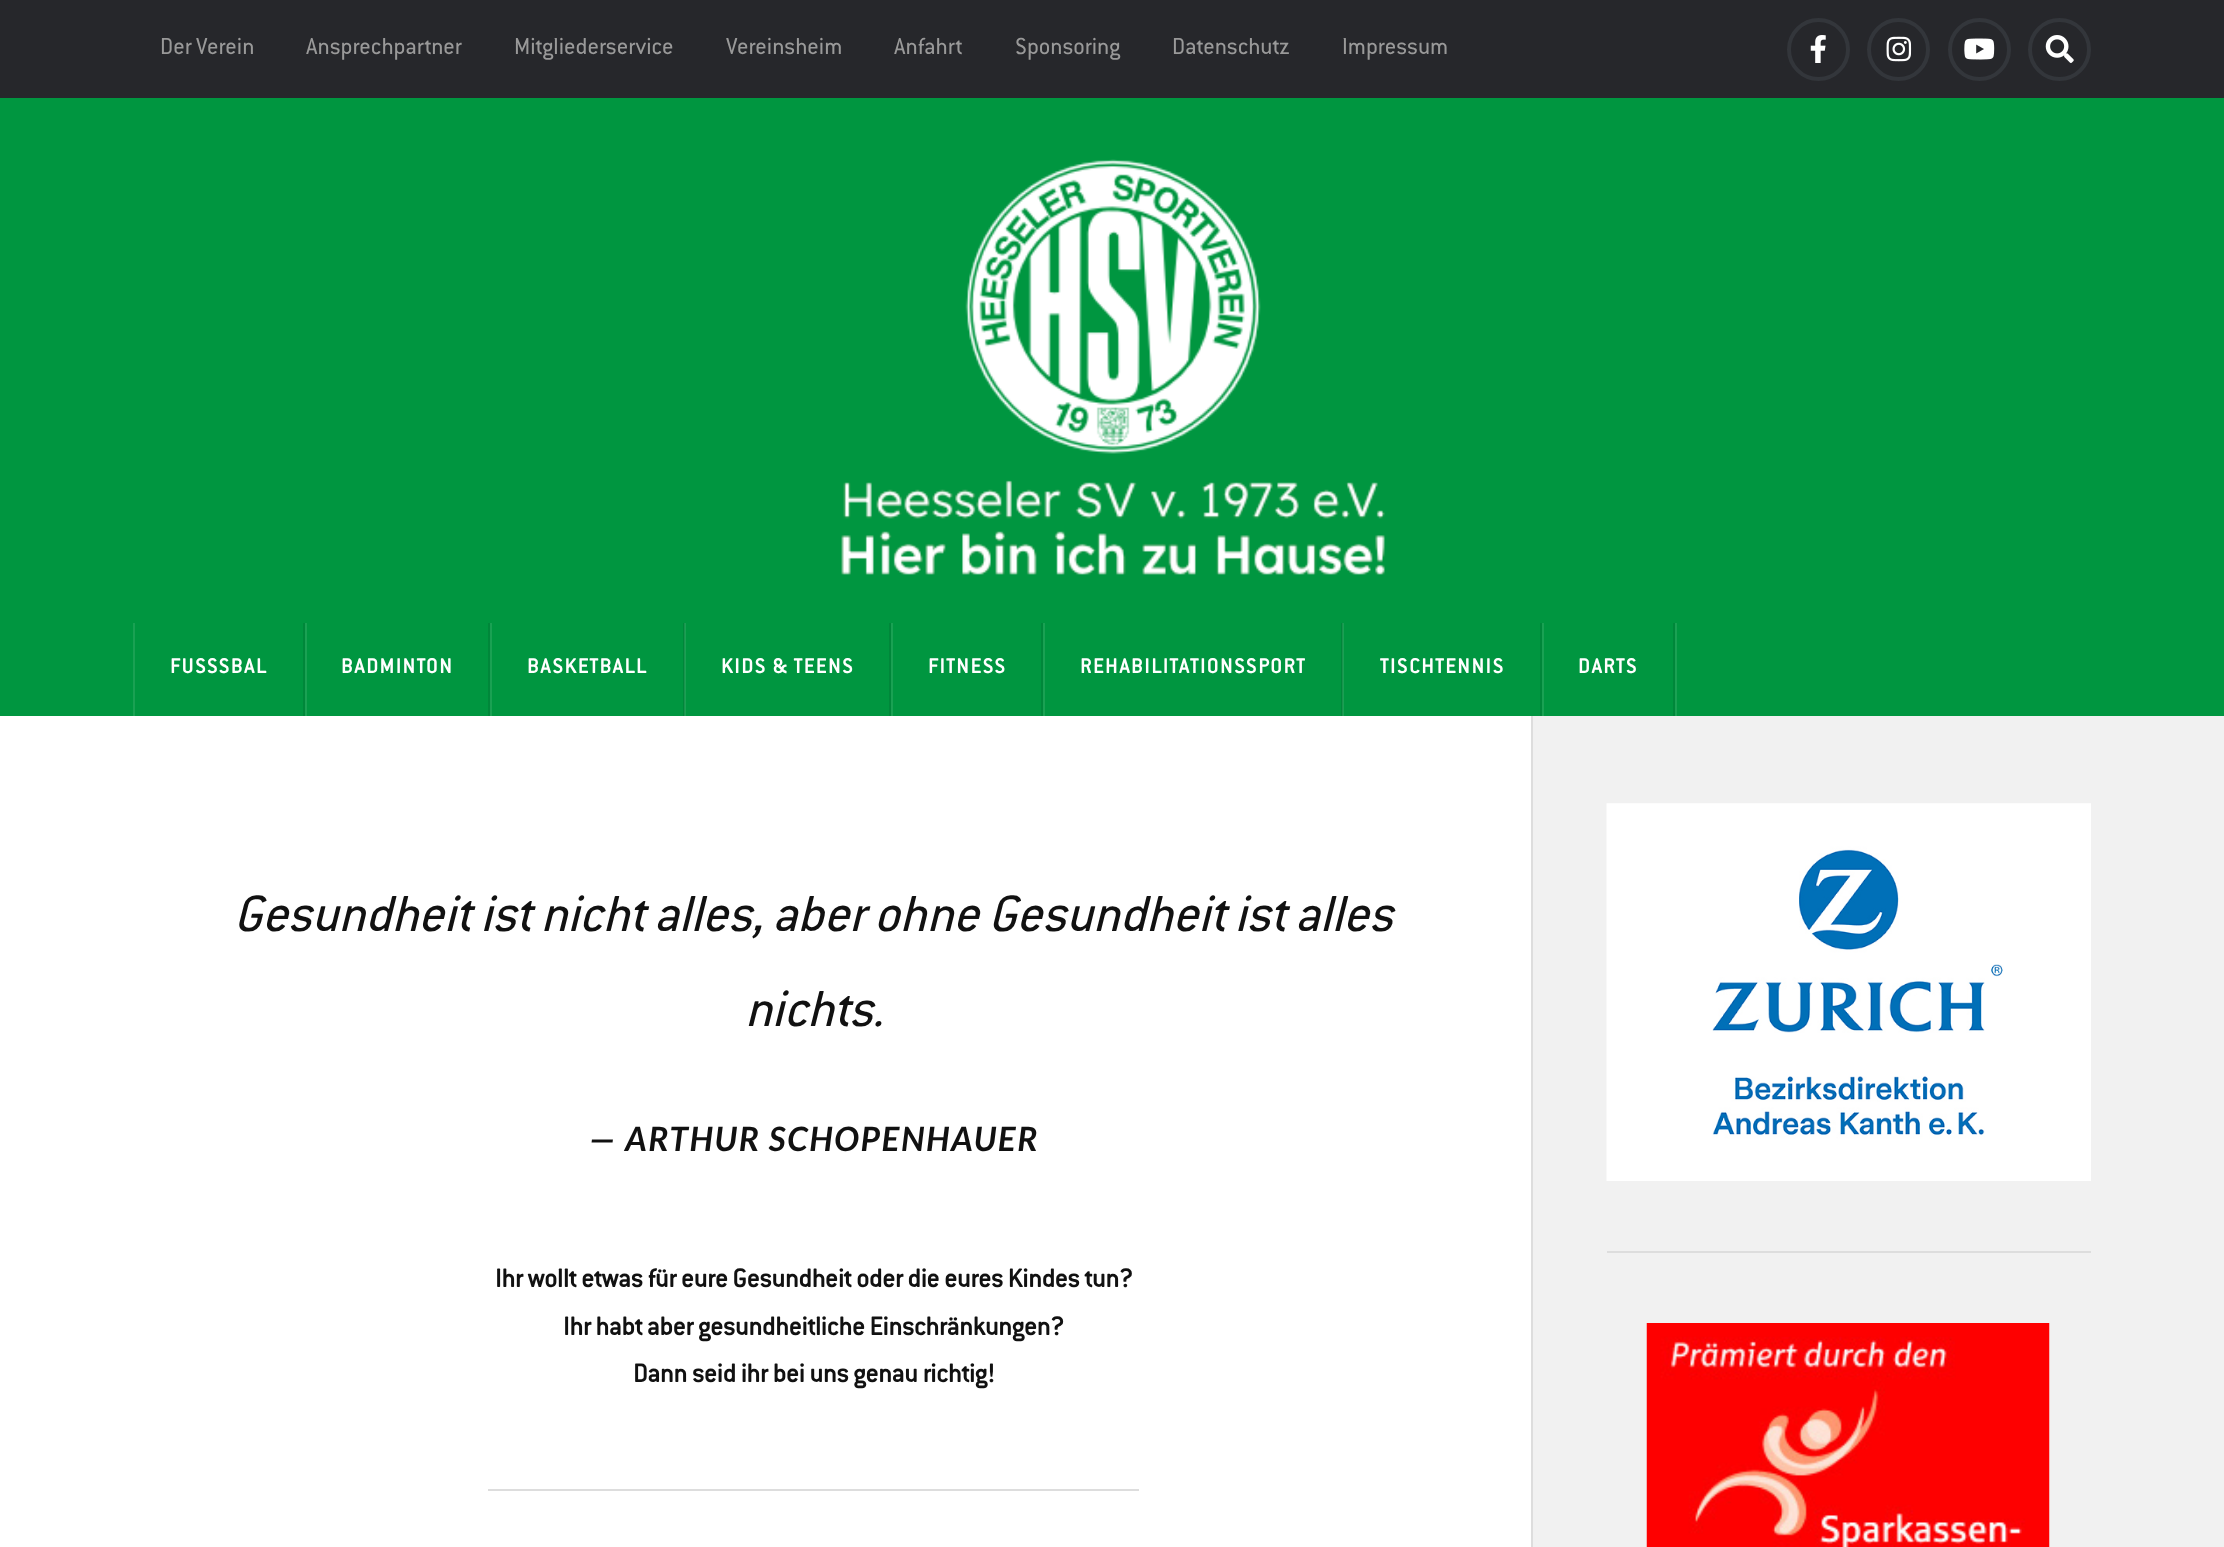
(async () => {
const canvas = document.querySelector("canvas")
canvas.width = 2224
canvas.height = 1547
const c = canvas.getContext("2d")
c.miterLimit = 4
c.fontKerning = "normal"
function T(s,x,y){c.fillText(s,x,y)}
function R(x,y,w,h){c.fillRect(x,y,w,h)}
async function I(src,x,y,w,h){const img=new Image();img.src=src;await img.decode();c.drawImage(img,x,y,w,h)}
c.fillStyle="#f1f1f1"
R(0,0,2224,1547)
c.fillStyle="#26272b"
R(0,0,2224,98)
c.font="25.25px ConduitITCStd"
c.fillStyle="#999"
T("Der Verein",160,54)
T("Ansprechpartner",306,54)
T("Mitgliederservice",514,54)
T("Vereinsheim",726,54)
T("Anfahrt",894,54)
T("Sponsoring",1015,54)
T("Datenschutz",1172,54)
T("Impressum",1342,54)
c.beginPath()
c.arc(1818.5,49.5,29.5,0,7)
c.strokeStyle="#33363b"
c.lineWidth=4
c.stroke()
await I("1.png",1810,35,16,28)
c.beginPath()
c.arc(1898.5,49.5,29.5,0,7)
c.stroke()
await I("2.png",1886,36,26,26)
c.beginPath()
c.arc(1979.5,49.5,29.5,0,7)
c.stroke()
await I("3.png",1964,38,31,22)
c.beginPath()
c.arc(2059.5,49.5,29.5,0,7)
c.stroke()
await I("4.png",2045,35,29,28)
c.fillStyle="#009640"
R(0,98,2224,618)
c.fillStyle="#1aa153"
R(1343,623,1,93)
R(685,623,1,93)
await I("5.png",841,159,544,416)
c.fillStyle="#00873a"
R(303,623,2,93)
c.fillStyle="#1aa153"
R(133,623,2,93)
c.letterSpacing="1.75px"
c.font="bold 22.4px ConduitITCStd"
c.fillStyle="#fff"
T("FUSSSBAL",170,673)
c.fillStyle="#00873a"
R(488,623,2,93)
c.fillStyle="#1aa153"
R(305,623,2,93)
c.fillStyle="#fff"
T("BADMINTON",341,673)
c.fillStyle="#00873a"
R(683,623,1,93)
c.fillStyle="#1a934e"
R(684,623,1,93)
c.fillStyle="#1aa153"
R(490,623,2,93)
c.fillStyle="#fff"
T("BASKETBALL",527,673)
c.fillStyle="#00873a"
R(889,623,2,93)
c.fillStyle="#fff"
T("KIDS & TEENS",721,673)
c.fillStyle="#00873a"
R(1041,623,2,93)
c.fillStyle="#1aa153"
R(891,623,2,93)
c.fillStyle="#fff"
T("FITNESS",928,673)
c.fillStyle="#00873a"
R(1341,623,1,93)
c.fillStyle="#1a934e"
R(1342,623,1,93)
c.fillStyle="#1aa153"
R(1043,623,2,93)
c.fillStyle="#fff"
T("REHABILITATIONSSPORT",1080,673)
c.fillStyle="#00873a"
R(1540,623,2,93)
c.fillStyle="#fff"
T("TISCHTENNIS",1380,673)
c.fillStyle="#00873a"
R(1673,623,2,93)
c.fillStyle="#1aa153"
R(1542,623,2,93)
c.fillStyle="#fff"
T("DARTS",1578,673)
c.fillStyle="#1aa153"
R(1675,623,2,93)
c.fillStyle="#fff"
R(0,716,1531,831)
c.letterSpacing="0px"
c.font="italic 55.75px ConduitITCStd"
c.fillStyle="#111"
T("Gesundheit ist nicht alles, aber ohne Gesundheit ist alles",234,931)
T("nichts.",745,1026)
c.letterSpacing="1.75px"
c.font="italic bold 33.5px Lato"
T("— ARTHUR SCHOPENHAUER",589,1151)
c.letterSpacing="0px"
c.font="bold 28px ConduitITCStd"
T("Ihr wollt etwas für eure Gesundheit oder die eures Kindes tun?",495,1287)
T("Ihr habt aber gesundheitliche Einschränkungen?",563,1335)
T("Dann seid ihr bei uns genau richtig!",633,1382)
c.fillStyle="#ddd"
R(488,1489,651,2)
R(1531,716,2,831)
await I("6.png",1606,803,485,378)
R(1607,1251,484,2)
await I("7.png",1646,1323,404,224)
})()
